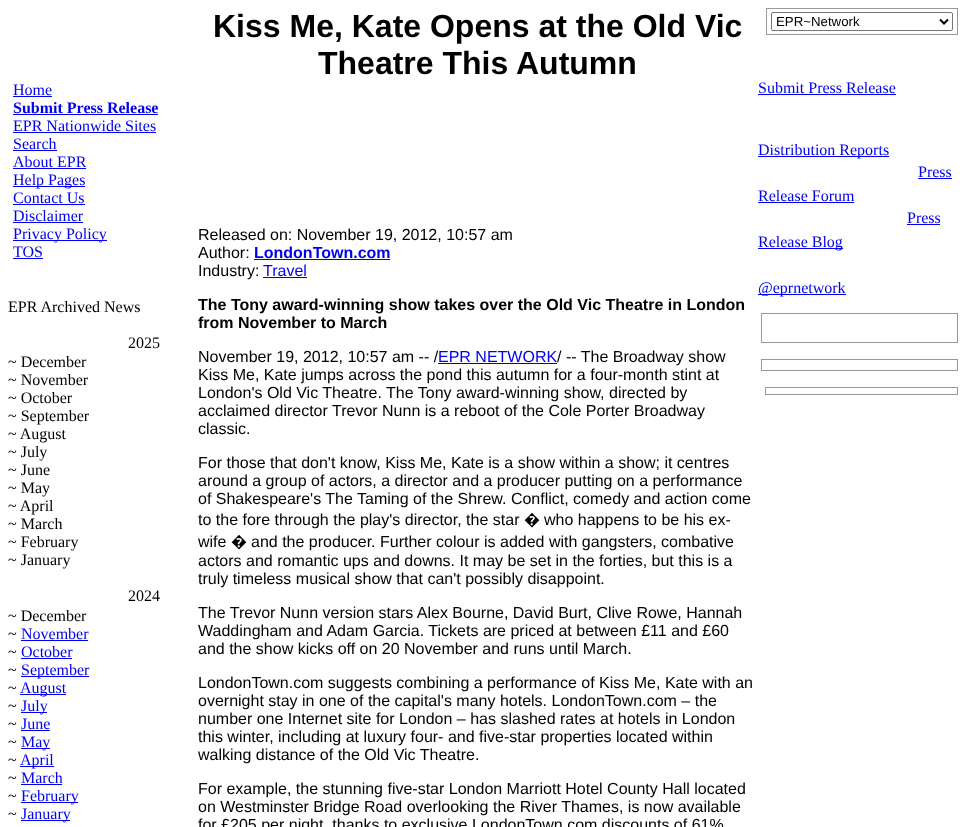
(async () => {
const canvas = document.querySelector("canvas")
canvas.width = 966
canvas.height = 827
const c = canvas.getContext("2d")
c.miterLimit = 4
c.fontKerning = "normal"
function T(s,x,y){c.fillText(s,x,y)}
function R(x,y,w,h){c.fillRect(x,y,w,h)}
let path
c.fillStyle="#fff"
R(0,0,966,827)
c.font="16px Liberation Serif"
c.fillStyle="#00e"
T("Home",13,95)
R(13,96,39,1)
c.font="bold 16px Liberation Serif"
T("Submit Press Release",13,113)
R(13,114,145,1)
c.font="16px Liberation Serif"
T("EPR Nationwide Sites",13,131)
R(13,132,143,1)
T("Search",13,149)
R(13,150,44,1)
T("About EPR",13,167)
R(13,168,73,1)
R(13,186,72,1)
T("Help Pages",13,185)
T("Contact Us",13,203)
R(13,204,72,1)
T("Disclaimer",13,221)
R(13,222,70,1)
R(13,240,94,1)
T("Privacy Policy",13,239)
T("TOS",13,257)
R(13,258,30,1)
c.fillStyle="#000"
T("EPR Archived News",8,312)
T("2025",128,348)
T("~ December",8,367)
T("~ November",8,385)
T("~ October",8,403)
T("~ September",8,421)
T("~ August",8,439)
T("~ July",8,457)
T("~ June",8,475)
T("~ May",8,493)
T("~ April",8,511)
T("~ March",8,529)
T("~ February",8,547)
T("~ January",8,565)
T("2024",128,601)
T("~ December",8,621)
T("~",8,639)
c.fillStyle="#00e"
T("November",21,639)
R(21,640,67,1)
c.fillStyle="#000"
T("~",8,657)
c.fillStyle="#00e"
T("October",21,657)
R(21,658,51,1)
c.fillStyle="#000"
T("~",8,675)
c.fillStyle="#00e"
R(21,676,68,1)
T("September",21,675)
c.fillStyle="#000"
T("~",8,693)
c.fillStyle="#00e"
R(20,694,46,1)
T("August",20,693)
c.fillStyle="#000"
T("~",8,711)
c.fillStyle="#00e"
R(21,712,26,1)
T("July",21,711)
c.fillStyle="#000"
T("~",8,729)
c.fillStyle="#00e"
T("June",21,729)
R(21,730,29,1)
c.fillStyle="#000"
T("~",8,747)
c.fillStyle="#00e"
R(21,748,29,1)
T("May",21,747)
c.fillStyle="#000"
T("~",8,765)
c.fillStyle="#00e"
R(20,766,34,1)
T("April",20,765)
c.fillStyle="#000"
T("~",8,783)
c.fillStyle="#00e"
T("March",21,783)
R(21,784,41,1)
c.fillStyle="#000"
T("~",8,801)
c.fillStyle="#00e"
R(21,802,57,1)
T("February",21,801)
c.fillStyle="#000"
T("~",8,819)
c.fillStyle="#00e"
R(21,820,49,1)
T("January",21,819)
c.font="bold 32px Liberation Sans"
c.fillStyle="#000"
T("Kiss Me, Kate Opens at the Old Vic",213,37)
T("Theatre This Autumn",318,74)
c.font="16px Liberation Sans"
T("Released on: November 19, 2012, 10:57 am",198,240)
T("Author:",198,258)
c.font="bold 16px Liberation Sans"
c.fillStyle="#00e"
T("LondonTown.com",254,258)
R(254,259,136,1)
c.font="16px Liberation Sans"
c.fillStyle="#000"
T("Industry:",198,276)
c.fillStyle="#00e"
T("Travel",263,276)
R(263,277,44,1)
c.font="bold 16px Liberation Sans"
c.fillStyle="#000"
T("The Tony award-winning show takes over the Old Vic Theatre in London",198,310)
T("from November to March",198,328)
c.font="16px Liberation Sans"
T("November 19, 2012, 10:57 am -- /",198,362)
c.fillStyle="#00e"
T("EPR NETWORK",438,362)
R(438,363,119,1)
c.fillStyle="#000"
T("/ -- The Broadway show",557,362)
T("Kiss Me, Kate jumps across the pond this autumn for a four-month stint at",198,380)
T("London's Old Vic Theatre. The Tony award-winning show, directed by",198,398)
T("acclaimed director Trevor Nunn is a reboot of the Cole Porter Broadway",198,416)
T("classic.",198,434)
T("For those that don't know, Kiss Me, Kate is a show within a show; it centres",198,468)
T("around a group of actors, a director and a producer putting on a performance",198,486)
T("of Shakespeare's The Taming of the Shrew. Conflict, comedy and action come",198,504)
T("to the fore through the play's director, the star",198,525)
c.font="16px Noto Sans"
T("�",524,525)
c.font="16px Liberation Sans"
T("who happens to be his ex-",544,525)
T("wife",198,547)
c.font="16px Noto Sans"
T("�",231,547)
c.font="16px Liberation Sans"
T("and the producer. Further colour is added with gangsters, combative",251,547)
T("actors and romantic ups and downs. It may be set in the forties, but this is a",198,566)
T("truly timeless musical show that can't possibly disappoint.",198,584)
T("The Trevor Nunn version stars Alex Bourne, David Burt, Clive Rowe, Hannah",198,618)
T("Waddingham and Adam Garcia. Tickets are priced at between £11 and £60",198,636)
T("and the show kicks off on 20 November and runs until March.",198,654)
T("LondonTown.com suggests combining a performance of Kiss Me, Kate with an",198,688)
T("overnight stay in one of the capital's many hotels. LondonTown.com – the",198,706)
T("number one Internet site for London – has slashed rates at hotels in London",198,724)
T("this winter, including at luxury four- and five-star properties located within",198,742)
T("walking distance of the Old Vic Theatre.",198,760)
T("For example, the stunning five-star London Marriott Hotel County Hall located",198,794)
T("on Westminster Bridge Road overlooking the River Thames, is now available",198,812)
T("for £205 per night, thanks to exclusive LondonTown.com discounts of 61%",198,830)
c.strokeStyle="#999"
c.strokeRect(766.5,8.5,191,26)
c.beginPath()
c.roundRect(771.5,12.5,181,18,1.5)
c.strokeStyle="#767676"
c.stroke()
path = new Path2D("M940 19.5l4 4l4-4")
c.strokeStyle="#000"
c.lineWidth=2
c.stroke(path)
c.font="13.25px Liberation Sans"
T("EPR~Network",776,26)
c.font="16px Liberation Serif"
c.fillStyle="#00e"
T("Submit Press Release",758,93)
R(758,94,138,1)
R(758,156,131,1)
T("Distribution Reports",758,155)
T("Press",918,177)
R(918,178,34,1)
T("Release Forum",758,201)
R(758,202,96,1)
T("Press",907,223)
R(907,224,33,1)
R(758,248,85,1)
T("Release Blog",758,247)
R(758,294,88,1)
T("@eprnetwork",758,293)
c.strokeStyle="#999"
c.lineWidth=1
c.strokeRect(761.5,313.5,196,29)
c.strokeRect(761.5,359.5,196,11)
c.strokeRect(765.5,387.5,192,7)
})()
